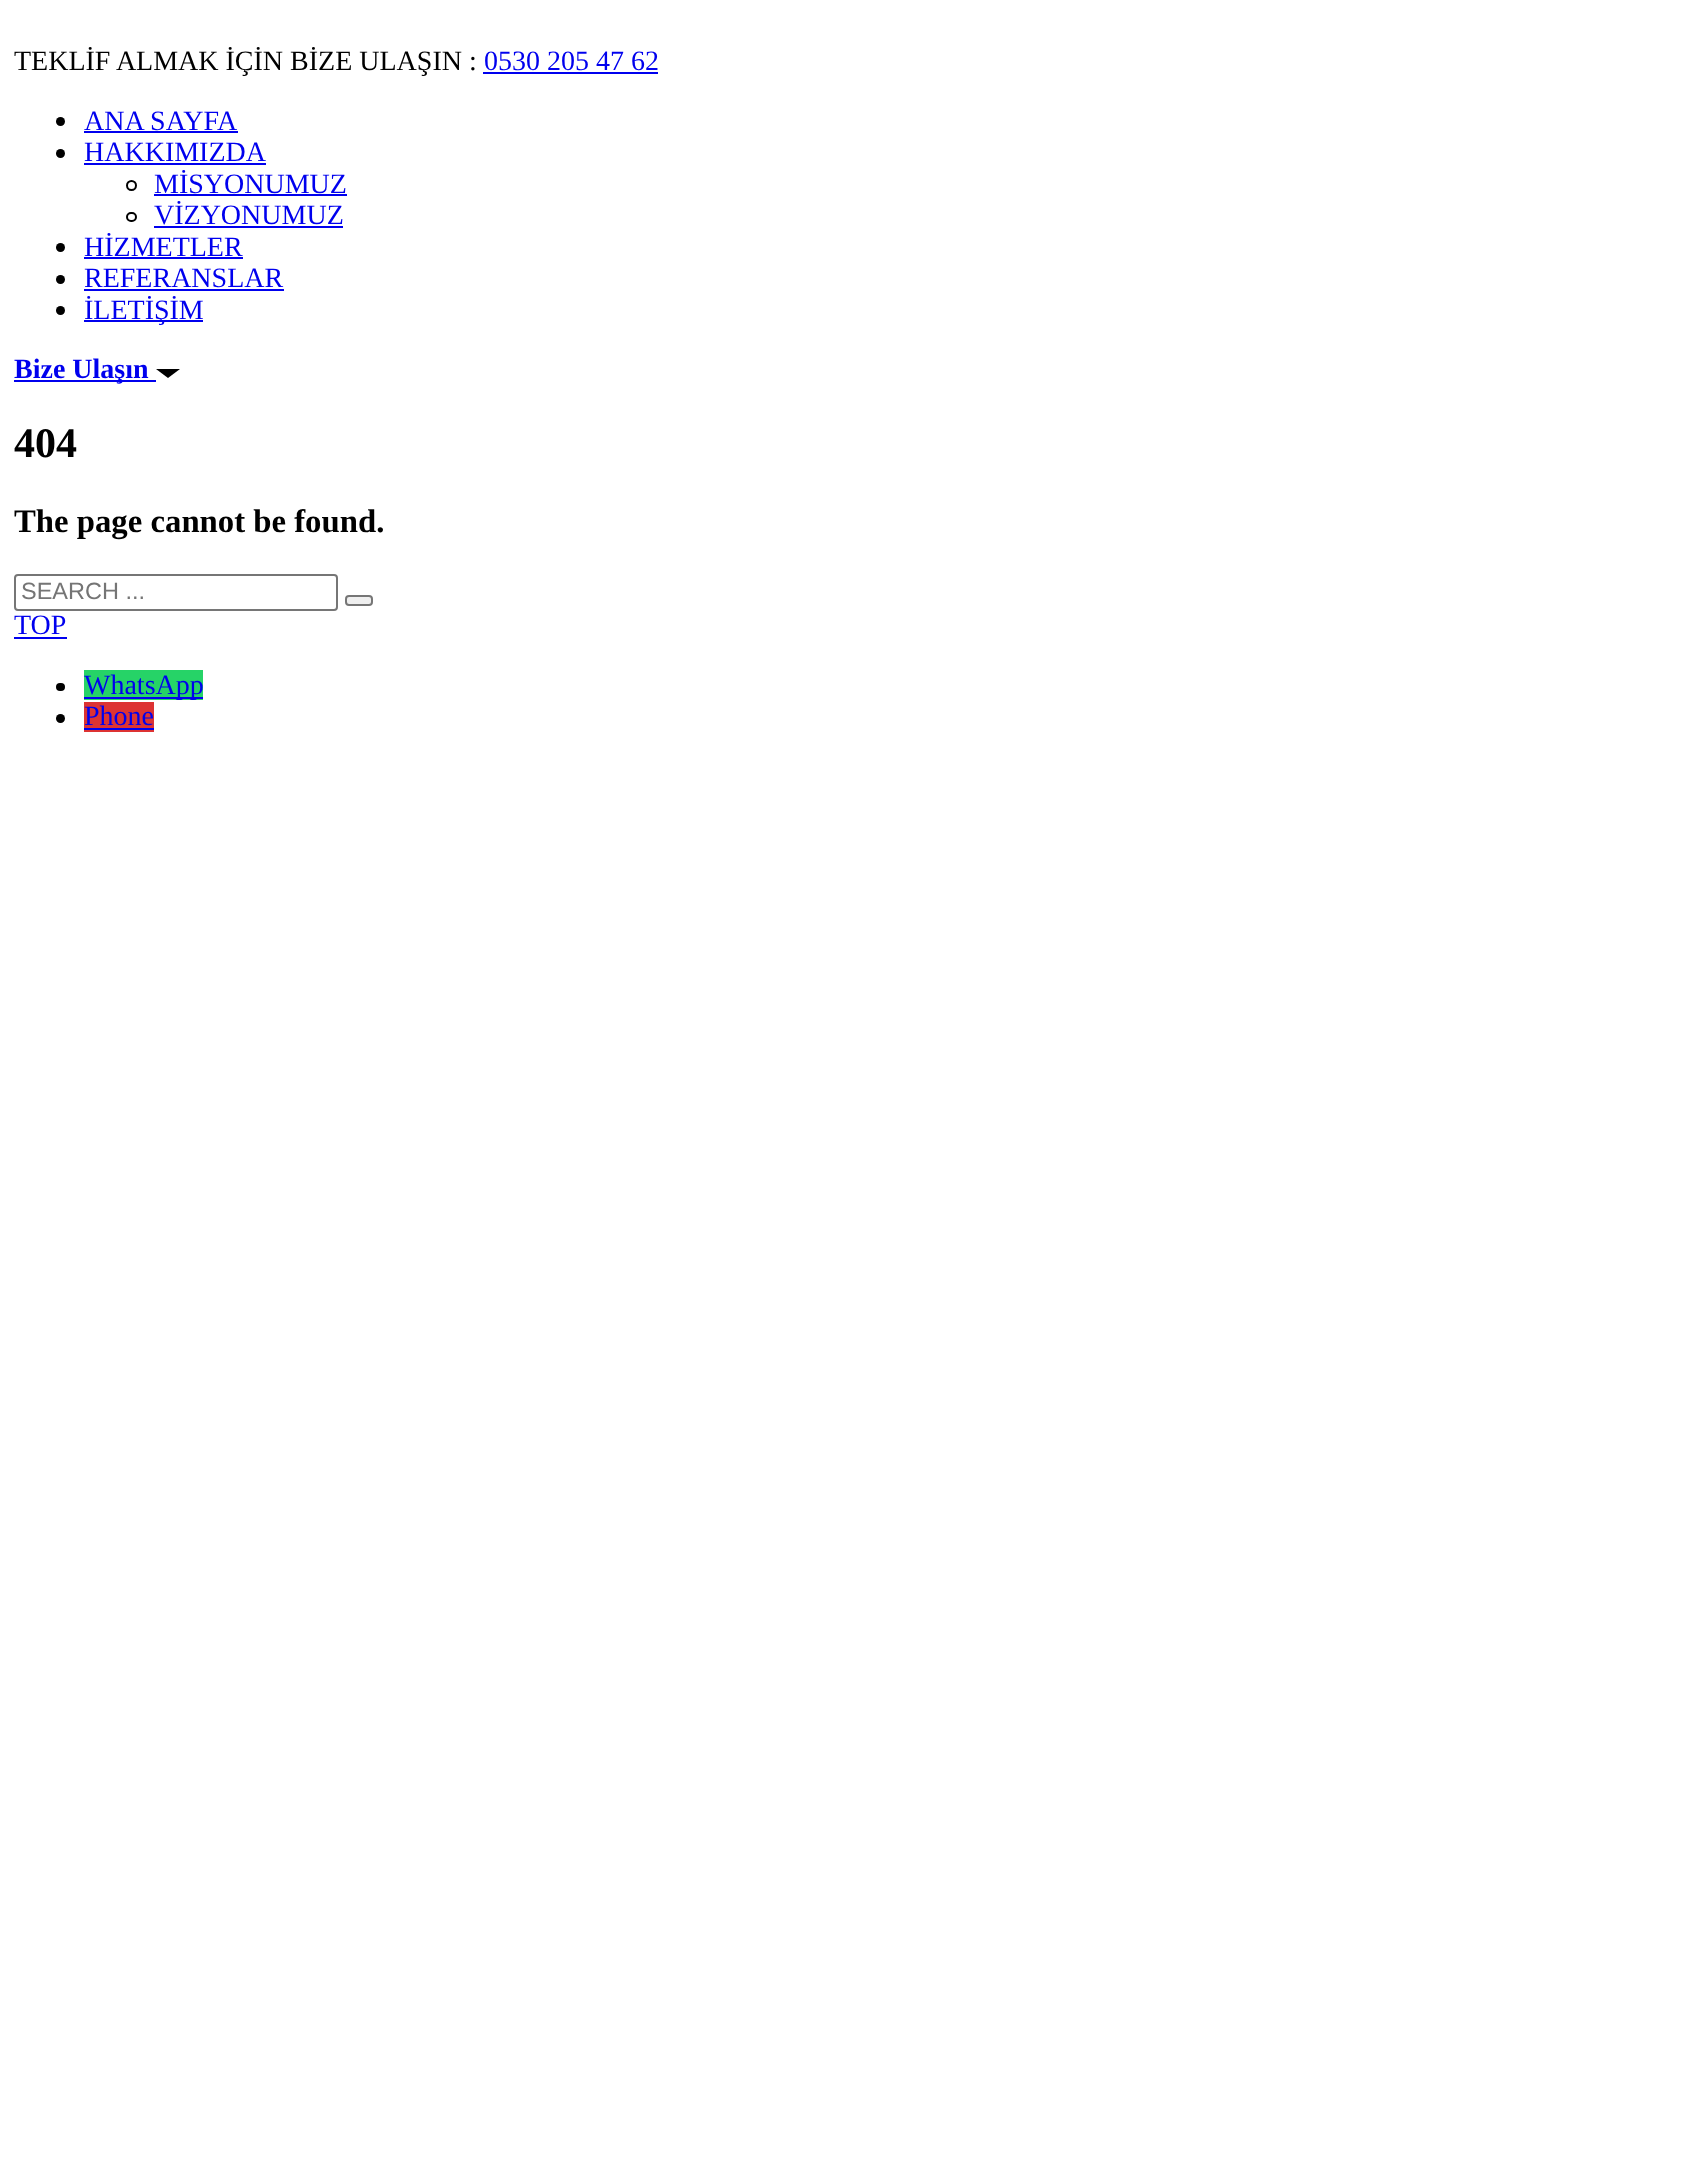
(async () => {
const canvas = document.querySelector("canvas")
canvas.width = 1708
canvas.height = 2178
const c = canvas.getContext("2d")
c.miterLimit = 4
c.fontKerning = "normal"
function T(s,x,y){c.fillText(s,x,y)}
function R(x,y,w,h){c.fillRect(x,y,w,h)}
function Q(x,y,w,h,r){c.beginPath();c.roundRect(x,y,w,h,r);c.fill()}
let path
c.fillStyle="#fff"
R(0,0,1708,2178)
c.font="28px Liberation Serif"
c.fillStyle="#000"
T("TEKLİF ALMAK İÇİN BİZE ULAŞIN :",14,70)
c.fillStyle="#00e"
T("0530 205 47 62",484,70)
R(483,72,175,2)
c.fillStyle="#000"
c.beginPath()
c.arc(60.5,121.5,4.5,0,7)
c.fill()
c.fillStyle="#00e"
T("ANA SAYFA",84,130)
R(84,131,154,2)
c.fillStyle="#000"
c.beginPath()
c.arc(60.5,153.5,4.5,0,7)
c.fill()
c.fillStyle="#00e"
T("HAKKIMIZDA",84,161)
R(84,163,182,2)
c.beginPath()
c.arc(131.5,185.5,4.5,0,7)
c.strokeStyle="#000"
c.lineWidth=2
c.stroke()
T("MİSYONUMUZ",154,193)
R(154,194,193,2)
c.beginPath()
c.roundRect(127,213,9,8,4)
c.stroke()
T("VİZYONUMUZ",154,224)
R(154,226,189,2)
c.fillStyle="#000"
c.beginPath()
c.arc(60.5,247.5,4.5,0,7)
c.fill()
c.fillStyle="#00e"
T("HİZMETLER",84,256)
R(84,257,159,2)
c.fillStyle="#000"
c.beginPath()
c.arc(60.5,279.5,4.5,0,7)
c.fill()
c.fillStyle="#00e"
T("REFERANSLAR",84,287)
R(84,289,200,2)
c.fillStyle="#000"
c.beginPath()
c.arc(60.5,310.5,4.5,0,7)
c.fill()
c.fillStyle="#00e"
R(84,320,119,2)
T("İLETİŞİM",84,319)
R(14,380,142,2)
c.font="bold 28px Liberation Serif"
T("Bize Ulaşın",14,378)
c.fillStyle="#000"
path = new Path2D("M180 369l-12 9l-12-9z")
c.fill(path,"evenodd")
c.font="bold 42px Liberation Serif"
T("404",14,457)
c.font="bold 32.75px Liberation Serif"
T("The page cannot be found.",14,532)
c.beginPath()
c.roundRect(15,575,322,35,3)
c.strokeStyle="#767676"
c.stroke()
c.font="23.5px Liberation Sans"
c.fillStyle="#757575"
T("SEARCH ...",21,599)
c.fillStyle="#efefef"
c.beginPath()
c.roundRect(346,596,26,9,3)
c.fill()
c.stroke()
c.font="28px Liberation Serif"
c.fillStyle="#00e"
T("TOP",14,634)
R(14,637,53,2)
c.fillStyle="#000"
Q(56,683,9,8,4)
c.fillStyle="#26d367"
R(84,670,119,30)
c.fillStyle="#00e"
R(84,697,119,2)
T("WhatsApp",84,694)
c.fillStyle="#000"
c.beginPath()
c.arc(60.5,718.5,4.5,0,7)
c.fill()
c.fillStyle="#d33"
R(84,702,70,30)
c.fillStyle="#00e"
T("Phone",84,725)
R(84,728,70,2)
})()
